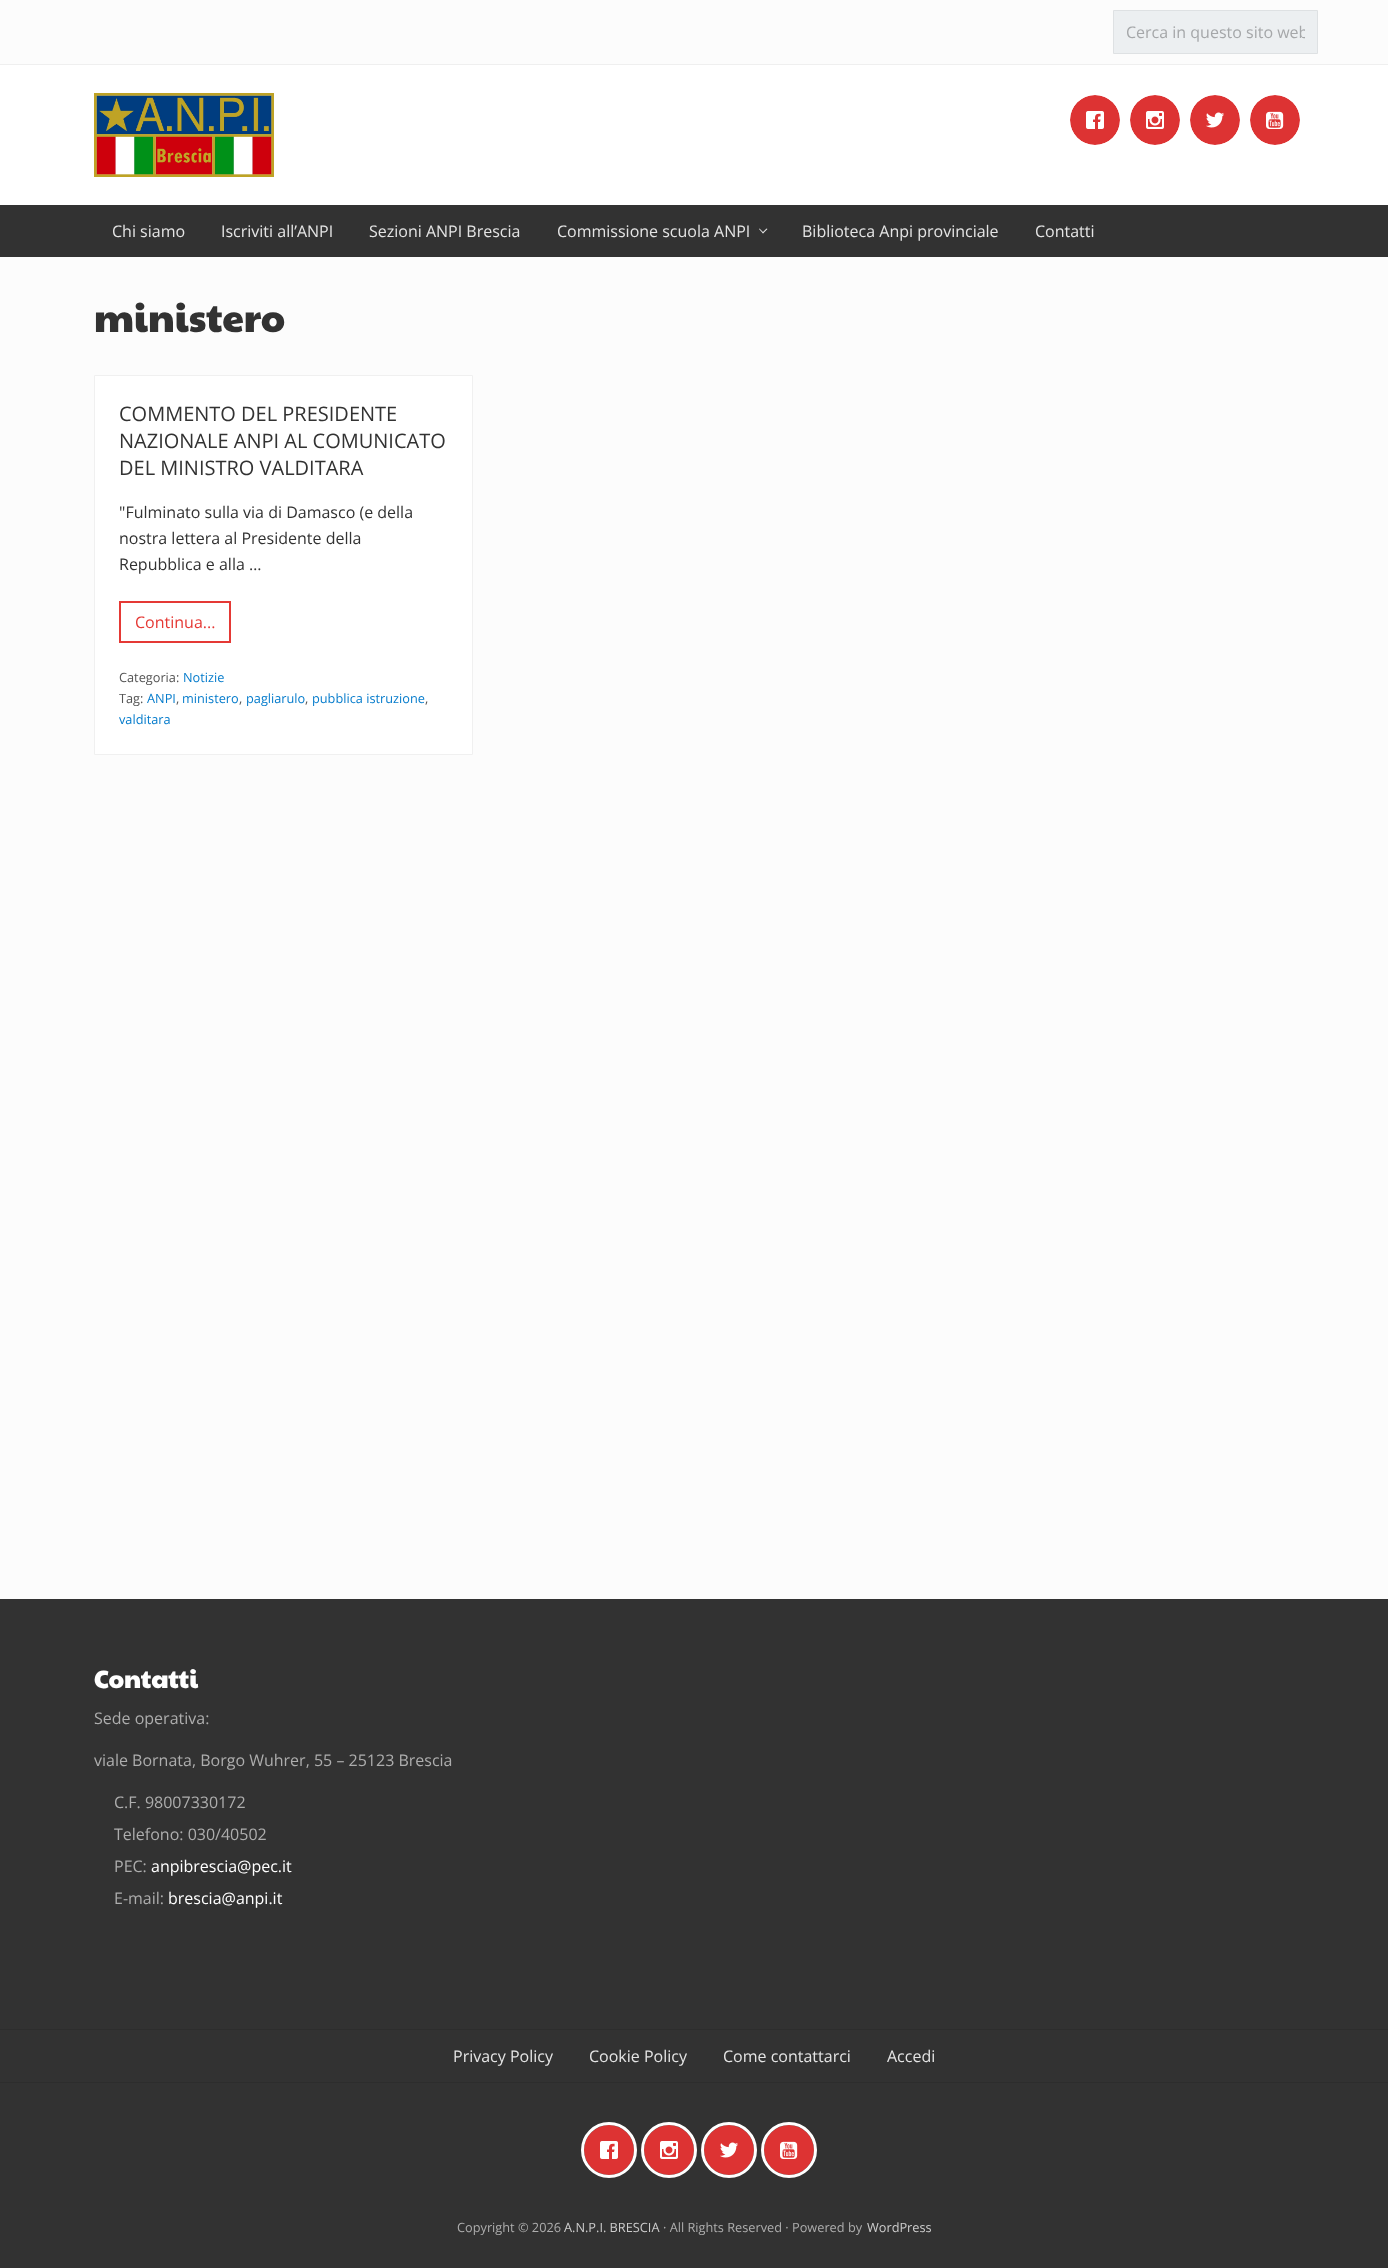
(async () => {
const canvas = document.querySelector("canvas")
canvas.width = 1388
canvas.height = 2268
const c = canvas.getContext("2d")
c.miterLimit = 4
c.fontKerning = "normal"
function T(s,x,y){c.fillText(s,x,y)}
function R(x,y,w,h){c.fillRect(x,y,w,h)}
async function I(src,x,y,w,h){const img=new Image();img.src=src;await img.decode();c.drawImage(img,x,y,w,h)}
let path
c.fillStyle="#fcfcfc"
R(0,0,1388,2268)
c.fillStyle="#efefef"
R(0,64,1388,1)
c.fillStyle="#eceff1"
c.beginPath()
c.rect(1113.5,10.5,204,43)
c.fill()
c.strokeStyle="#dee1e3"
c.stroke()
c.save()
c.beginPath()
c.rect(1126,21,179,22)
c.clip()
c.font="16px Open Sans"
c.fillStyle="#a5a7a9"
T("Cerca in questo sito web",1126,38)
c.restore()
c.fillStyle="#fff"
R(0,65,1388,140)
await I("1.png",94,93,180,84)
c.fillStyle="#d33"
c.beginPath()
c.arc(1095,120,25,0,7)
c.fill()
await I("2.png",1086,111,18,18)
c.beginPath()
c.arc(1095,120,26.5,0,7)
c.strokeStyle="#fff"
c.lineWidth=3
c.stroke()
c.beginPath()
c.arc(1155,120,25,0,7)
c.fill()
await I("3.png",1146,111,18,18)
c.beginPath()
c.arc(1155,120,26.5,0,7)
c.stroke()
c.beginPath()
c.arc(1215,120,25,0,7)
c.fill()
await I("4.png",1206,112,18,16)
c.beginPath()
c.arc(1215,120,26.5,0,7)
c.stroke()
c.beginPath()
c.arc(1275,120,25,0,7)
c.fill()
await I("5.png",1266,111,18,18)
c.beginPath()
c.arc(1275,120,26.5,0,7)
c.stroke()
c.fillStyle="#323232"
R(0,205,1388,52)
c.font="16px Open Sans"
c.fillStyle="#e4e4e4"
T("Chi siamo",112,237)
T("Iscriviti all’ANPI",221,237)
T("Sezioni ANPI Brescia",369,237)
T("Commissione scuola ANPI",557,237)
path = new Path2D("M766.5 228.5l1 .5l-4.5 4.5l-.5-1z")
c.fill(path)
path = new Path2D("M759.5 228.5l4 4l-.5 1l-4-4.5z")
c.fill(path)
T("Biblioteca Anpi provinciale",802,237)
T("Contatti",1035,237)
c.font="39px Paytone One"
c.fillStyle="#323232"
T("ministero",94,332)
c.fillStyle="#fff"
c.beginPath()
c.rect(94.5,375.5,378,379)
c.fill()
c.strokeStyle="#f0f0f0"
c.lineWidth=1
c.stroke()
c.font="20px Open Sans"
c.fillStyle="#323232"
T("COMMENTO DEL PRESIDENTE",119,421)
T("NAZIONALE ANPI AL COMUNICATO",119,448)
T("DEL MINISTRO VALDITARA",119,475)
c.font="16px Open Sans"
T("\"Fulminato sulla via di Damasco (e della",119,518)
T("nostra lettera al Presidente della",119,544)
T("Repubblica e alla …",119,570)
c.strokeStyle="#e53935"
c.lineWidth=2
c.strokeRect(120,602,110,40)
c.fillStyle="#e53935"
T("Continua...",135,628)
c.font="12.75px Open Sans"
c.fillStyle="#555"
T("Categoria:",119,682)
c.fillStyle="#067ccc"
T("Notizie",183,682)
c.fillStyle="#555"
T("Tag:",119,703)
c.fillStyle="#067ccc"
T("ANPI",147,703)
c.fillStyle="#555"
T(",",176,703)
c.fillStyle="#067ccc"
T("ministero",182,703)
c.fillStyle="#555"
T(",",239,703)
c.fillStyle="#067ccc"
T("pagliarulo",246,703)
c.fillStyle="#555"
T(",",305,703)
c.fillStyle="#067ccc"
T("pubblica istruzione",312,703)
c.fillStyle="#555"
T(",",425,703)
c.fillStyle="#067ccc"
T("valditara",119,724)
c.fillStyle="#323232"
R(0,1599,1388,430)
c.fillStyle="#2d2d2d"
R(0,2029,1388,1)
c.font="25px Paytone One"
c.fillStyle="#fff"
T("Contatti",94,1688)
c.font="16px Open Sans"
c.fillStyle="#adadad"
T("Sede operativa:",94,1724)
T("viale Bornata, Borgo Wuhrer, 55 – 25123 Brescia",94,1766)
T("C.F. 98007330172",114,1808)
T("Telefono: 030/40502",114,1840)
T("PEC:",114,1872)
c.fillStyle="#fff"
T("anpibrescia@pec.it",151,1872)
c.fillStyle="#adadad"
T("E-mail:",114,1904)
c.fillStyle="#fff"
T("brescia@anpi.it",168,1904)
c.fillStyle="#323232"
R(0,2030,1388,52)
c.fillStyle="#e4e4e4"
T("Privacy Policy",453,2062)
T("Cookie Policy",589,2062)
T("Come contattarci",723,2062)
T("Accedi",887,2062)
c.fillStyle="#323232"
R(0,2083,1388,185)
c.fillStyle="#2d2d2d"
R(0,2082,1388,1)
c.fillStyle="#d33"
c.beginPath()
c.arc(609,2150,25,0,7)
c.fill()
await I("2.png",600,2141,18,18)
c.beginPath()
c.arc(609,2150,26.5,0,7)
c.strokeStyle="#fff"
c.lineWidth=3
c.stroke()
c.beginPath()
c.arc(669,2150,25,0,7)
c.fill()
await I("3.png",660,2141,18,18)
c.beginPath()
c.arc(669,2150,26.5,0,7)
c.stroke()
c.beginPath()
c.arc(729,2150,25,0,7)
c.fill()
await I("4.png",720,2142,18,16)
c.beginPath()
c.arc(729,2150,26.5,0,7)
c.stroke()
c.beginPath()
c.arc(789,2150,25,0,7)
c.fill()
await I("5.png",780,2141,18,18)
c.beginPath()
c.arc(789,2150,26.5,0,7)
c.stroke()
c.font="12.75px Open Sans"
c.fillStyle="#adadad"
T("Copyright © 2026",457,2232)
c.fillStyle="#ccc"
T("A.N.P.I. BRESCIA",564,2232)
c.fillStyle="#adadad"
T("· All Rights Reserved · Powered by",663,2232)
c.fillStyle="#ccc"
T("WordPress",867,2232)
})()
